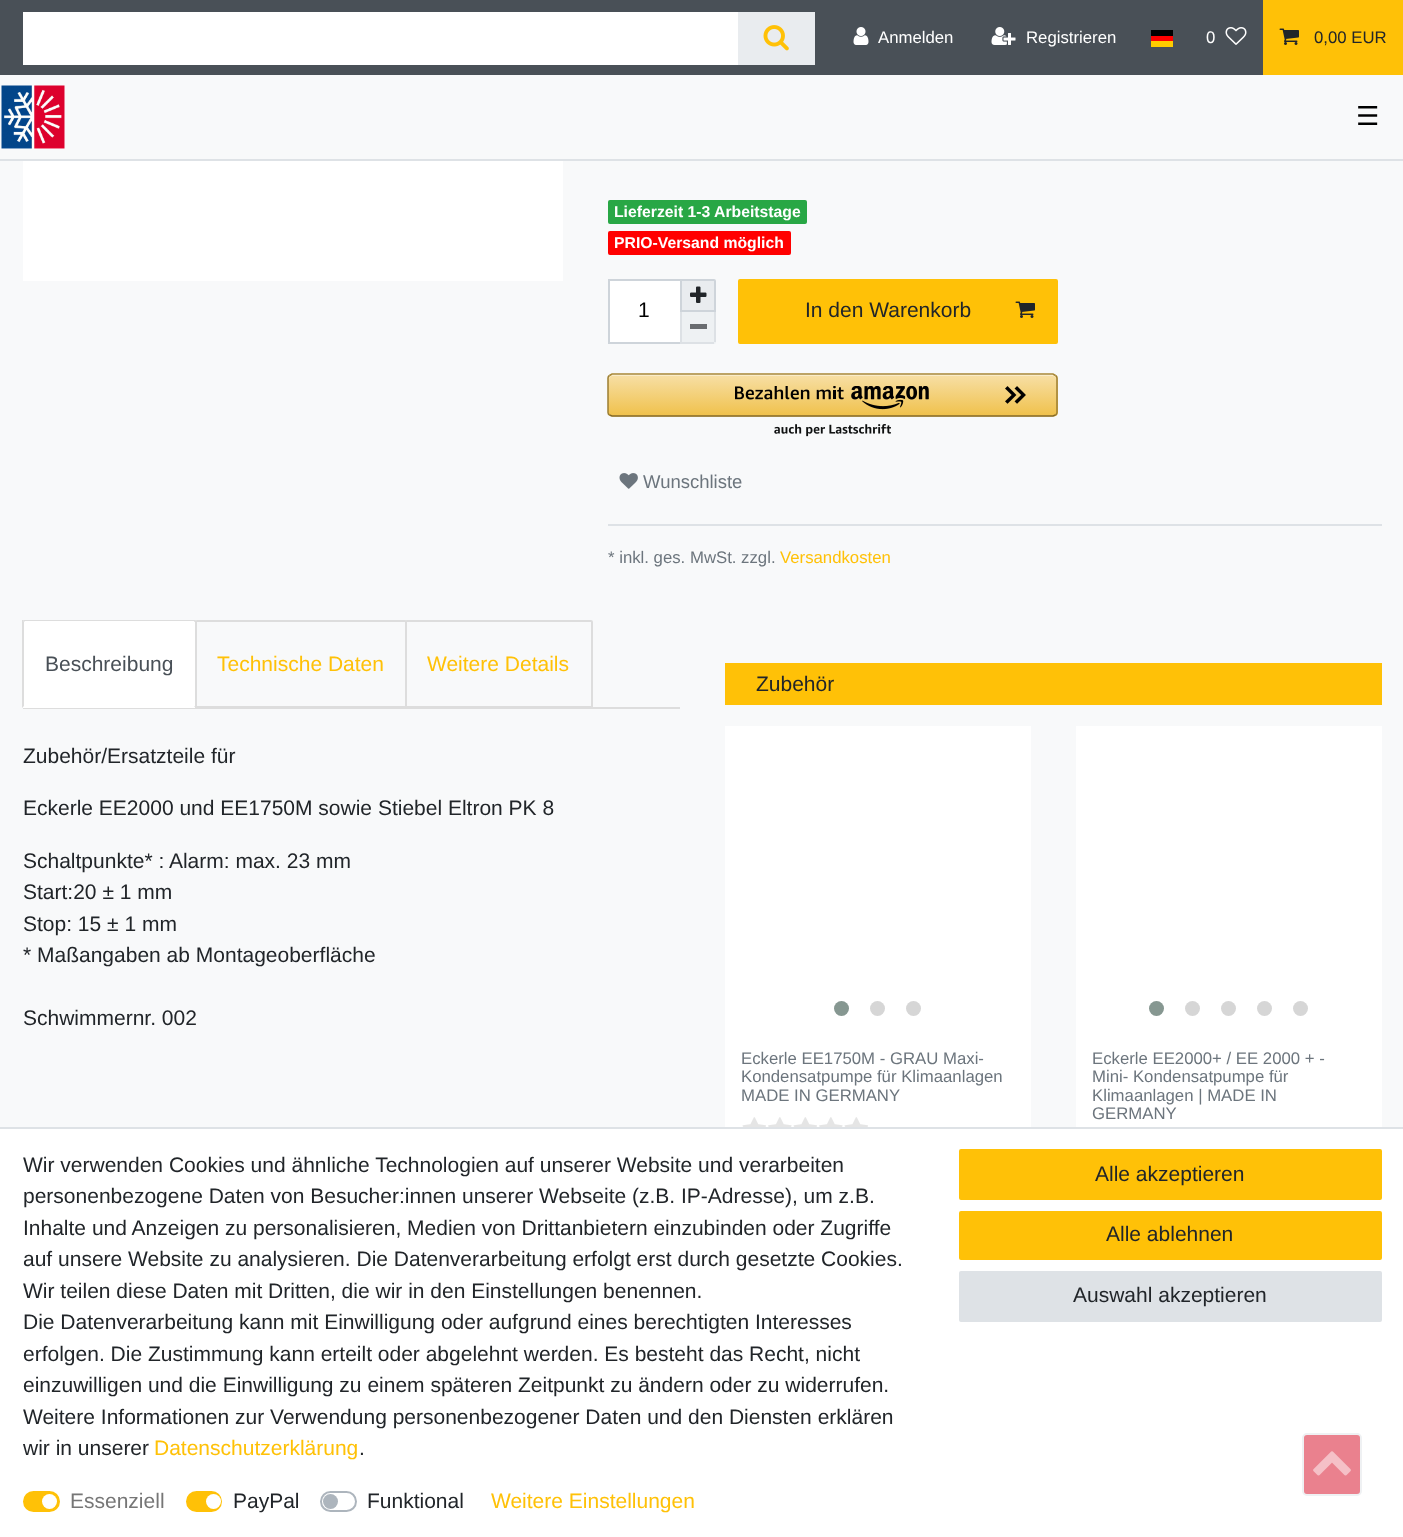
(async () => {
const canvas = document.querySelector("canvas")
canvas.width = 1403
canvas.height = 1537
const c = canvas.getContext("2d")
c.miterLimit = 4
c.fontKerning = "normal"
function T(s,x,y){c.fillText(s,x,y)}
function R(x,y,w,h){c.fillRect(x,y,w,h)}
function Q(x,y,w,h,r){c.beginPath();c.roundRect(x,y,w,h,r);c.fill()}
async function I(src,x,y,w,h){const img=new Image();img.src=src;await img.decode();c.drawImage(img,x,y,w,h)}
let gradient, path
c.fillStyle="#f8f9fa"
R(0,0,1403,1537)
c.fillStyle="#495057"
R(0,0,1263,75)
c.fillStyle="#fff"
R(23,12,715,53)
c.fillStyle="#e9ecef"
R(738,12,77,53)
await I("1.png",763,25,26,26)
await I("2.png",853,27,16,18)
c.font="16.75px Liberation Sans"
c.fillStyle="#fff"
T("Anmelden",878,43)
await I("3.png",991,27,25,18)
T("Registrieren",1026,43)
c.fillStyle="#fc0"
R(1151,41,22,6)
c.fillStyle="#000"
R(1151,30,22,6)
c.fillStyle="#f00"
R(1151,36,22,5)
c.fillStyle="#fff"
T("0",1206,43)
await I("4.png",1225,27,22,18)
c.fillStyle="#ffc107"
R(1263,0,140,75)
await I("5.png",1279,28,20,17)
c.fillStyle="#212529"
T("0,00 EUR",1314,43)
c.fillStyle="#dee2e6"
R(0,159,1403,2)
await I("6.png",1,85,64,64)
c.font="26px DejaVu Sans"
c.fillStyle="#000"
T("☰",1356,125)
c.fillStyle="#fff"
R(23,161,540,120)
c.fillStyle="#28a745"
Q(608,200,199,24,2)
c.font="bold 15.75px Liberation Sans"
c.fillStyle="#fff"
T("Lieferzeit 1-3 Arbeitstage",614,217)
c.fillStyle="#f00"
Q(608,231,183,24,2)
c.fillStyle="#fff"
T("PRIO-Versand möglich",614,248)
R(610,281,70,61)
c.fillStyle="#ced4da"
R(608,279,72,2)
R(608,342,72,2)
R(608,279,2,65)
c.font="21px Liberation Sans"
c.fillStyle="#000"
T("1",638,317)
c.fillStyle="#e9ecef"
c.beginPath()
c.roundRect(681,280,34,31,[0,1,0,0])
c.fill()
c.strokeStyle="#ced4da"
c.lineWidth=2
c.stroke()
await I("7.png",690,286,17,17)
c.fillStyle="#eef1f3"
c.beginPath()
c.roundRect(680,312,36,32,[0,0,2,0])
c.fill()
c.fillStyle="#dde1e5"
R(714,312,2,30)
R(680,342,34,2)
R(680,312,2,32)
c.fillStyle="#696c70"
R(690,324,17,5)
c.fillStyle="#ffc107"
c.beginPath()
c.roundRect(739,280,318,63,1)
c.fill()
c.strokeStyle="#ffc107"
c.stroke()
c.fillStyle="#212529"
T("In den Warenkorb",805,317)
await I("5.png",1015,301,20,17)
c.save()
c.beginPath()
c.roundRect(608,374,450,43,5)
c.clip()
gradient = c.createLinearGradient(833,375,833,416)
gradient.addColorStop(0,"#f7dfa5")
gradient.addColorStop(1,"#f0c14b")
c.fillStyle = gradient
R(608,375,450,41)
gradient = c.createLinearGradient(833,416,833,456)
gradient.addColorStop(0,"#f7dfa5")
gradient.addColorStop(1,"#f0c14b")
c.fillStyle = gradient
R(608,416,450,1)
c.restore()
c.fillStyle="#faecc8"
path = new Path2D("M612 376h441c2 0 3 2 3 4l-1-4l-2-1h-441c-3 0-3 3-3 5c0-2 1-4 3-4z")
c.fill(path)
path = new Path2D("M609.5 375.5l2.5-1.5h441l2.5 1.5")
c.strokeStyle="#a88734"
c.lineWidth=1.5
c.stroke(path)
path = new Path2D("M1055.5 375.5c1 .5 1.5 1.5 1.5 2.5v34.5c0 1-.5 2-1.5 2.5")
c.strokeStyle="#9c7e31"
c.stroke(path)
path = new Path2D("M1055.5 415l-2.5 1h-441l-2.5-1")
c.strokeStyle="#846a29"
c.stroke(path)
path = new Path2D("M609.5 415c-1-.5-1.5-1.5-1.5-2.5v-34.5c0-1 .5-2 1.5-2.5")
c.strokeStyle="#9c7e31"
c.stroke(path)
await I("8.png",735,386,194,24)
await I("9.png",1005,386,21,18)
await I("10.png",774,424,117,13)
await I("11.png",619,473,19,16)
c.font="18.5px Liberation Sans"
c.fillStyle="#6c757d"
T("Wunschliste",643,488)
c.fillStyle="#dee2e6"
R(608,524,774,2)
c.font="16.75px Liberation Sans"
c.fillStyle="#6c757d"
T("* inkl. ges. MwSt. zzgl.",608,563)
c.fillStyle="#ffc107"
T("Versandkosten",780,563)
c.fillStyle="#ddd"
R(23,707,657,2)
c.fillStyle="#fff"
c.beginPath()
c.roundRect(23,620,174,88,[2,2,0,0])
c.fill()
c.fillStyle="#ddd"
path = new Path2D("M25 620h-2l1 2l1-1h169v1l2-2h-2z")
c.fill(path)
path = new Path2D("M196 708v-88l-2 2h1v84h-1z")
c.fill(path)
path = new Path2D("M22 708l2-2v-84l-1-2h-1z")
c.fill(path)
c.font="21px Liberation Sans"
c.fillStyle="#495057"
T("Beschreibung",45,671)
c.beginPath()
c.roundRect(196,621,210,86,[1,1,0,0])
c.strokeStyle="#ddd"
c.lineWidth=2
c.stroke()
c.fillStyle="#ffc107"
T("Technische Daten",217,671)
c.beginPath()
c.roundRect(406,621,186,86,[1,1,0,0])
c.stroke()
T("Weitere Details",427,671)
c.fillStyle="#212529"
T("Zubehör/Ersatzteile für",23,763)
T("Eckerle EE2000 und EE1750M sowie Stiebel Eltron PK 8",23,815)
T("Schaltpunkte* : Alarm: max. 23 mm",23,868)
T("Start:20 ± 1 mm",23,899)
T("Stop: 15 ± 1 mm",23,931)
T("* Maßangaben ab Montageoberfläche",23,962)
T("Schwimmernr. 002",23,1025)
c.fillStyle="#ffc107"
R(725,663,657,42)
c.fillStyle="#212529"
T("Zubehör",756,691)
c.fillStyle="#fff"
R(725,726,306,401)
c.fillStyle="#869791"
c.beginPath()
c.arc(841.5,1008.5,7.5,0,7)
c.fill()
c.fillStyle="#d6d6d6"
c.beginPath()
c.arc(877.5,1008.5,7.5,0,7)
c.fill()
c.beginPath()
c.arc(913.5,1008.5,7.5,0,7)
c.fill()
c.font="16.75px Liberation Sans"
c.fillStyle="#6c757d"
T("Eckerle EE1750M - GRAU Maxi-",741,1064)
T("Kondensatpumpe für Klimaanlagen",741,1082)
T("MADE IN GERMANY",741,1101)
await I("12.png",742,1117,24,10)
await I("13.png",768,1117,24,10)
await I("12.png",793,1117,24,10)
await I("13.png",819,1117,24,10)
await I("12.png",844,1117,24,10)
c.fillStyle="#fff"
R(1076,726,306,401)
c.fillStyle="#869791"
c.beginPath()
c.arc(1156.5,1008.5,7.5,0,7)
c.fill()
c.fillStyle="#d6d6d6"
c.beginPath()
c.arc(1192.5,1008.5,7.5,0,7)
c.fill()
c.beginPath()
c.arc(1228.5,1008.5,7.5,0,7)
c.fill()
c.beginPath()
c.arc(1264.5,1008.5,7.5,0,7)
c.fill()
c.beginPath()
c.arc(1300.5,1008.5,7.5,0,7)
c.fill()
c.fillStyle="#6c757d"
T("Eckerle EE2000+ / EE 2000 + -",1092,1064)
T("Mini- Kondensatpumpe für",1092,1082)
T("Klimaanlagen | MADE IN",1092,1101)
T("GERMANY",1092,1119)
c.fillStyle="#fff"
R(0,1129,1403,408)
c.fillStyle="#dee2e6"
R(0,1127,1403,2)
c.font="21px Liberation Sans"
c.fillStyle="#212529"
T("Wir verwenden Cookies und ähnliche Technologien auf unserer Website und verarbeiten",23,1172)
T("personenbezogene Daten von Besucher:innen unserer Webseite (z.B. IP-Adresse), um z.B.",23,1203)
T("Inhalte und Anzeigen zu personalisieren, Medien von Drittanbietern einzubinden oder Zugriffe",23,1235)
T("auf unsere Website zu analysieren. Die Datenverarbeitung erfolgt erst durch gesetzte Cookies.",23,1266)
T("Wir teilen diese Daten mit Dritten, die wir in den Einstellungen benennen.",23,1298)
T("Die Datenverarbeitung kann mit Einwilligung oder aufgrund eines berechtigten Interesses",23,1329)
T("erfolgen. Die Zustimmung kann erteilt oder abgelehnt werden. Es besteht das Recht, nicht",23,1361)
T("einzuwilligen und die Einwilligung zu einem späteren Zeitpunkt zu ändern oder zu widerrufen.",23,1392)
T("Weitere Informationen zur Verwendung personenbezogener Daten und den Diensten erklären",23,1424)
T("wir in unserer",23,1455)
c.fillStyle="#ffc107"
T("Datenschutzerklärung",154,1455)
c.fillStyle="#212529"
T(".",359,1455)
c.fillStyle="#ffc107"
c.beginPath()
c.roundRect(24,1492,35,19,9.5)
c.fill()
c.strokeStyle="#ffc107"
c.stroke()
c.fillStyle="#767676"
T("Essenziell",70,1508)
c.fillStyle="#fff"
c.beginPath()
c.arc(49.5,1501.5,7.5,0,7)
c.fill()
c.fillStyle="#ffc107"
c.beginPath()
c.roundRect(187,1492,34,19,9.5)
c.fill()
c.stroke()
c.fillStyle="#212529"
T("PayPal",233,1508)
c.fillStyle="#fff"
c.beginPath()
c.arc(213.5,1501.5,7.5,0,7)
c.fill()
c.beginPath()
c.roundRect(321,1492,35,19,9.5)
c.strokeStyle="#adb5bd"
c.stroke()
c.fillStyle="#212529"
T("Funktional",367,1508)
c.fillStyle="#adb5bd"
c.beginPath()
c.arc(330.5,1501.5,7.5,0,7)
c.fill()
c.fillStyle="#ffc107"
T("Weitere Einstellungen",491,1508)
c.beginPath()
c.roundRect(960,1150,421,49,1)
c.fill()
c.strokeStyle="#ffc107"
c.stroke()
c.fillStyle="#212529"
T("Alle akzeptieren",1095,1181)
c.fillStyle="#ffc107"
c.beginPath()
c.roundRect(960,1212,421,47,1)
c.fill()
c.stroke()
c.fillStyle="#212529"
T("Alle ablehnen",1106,1241)
c.fillStyle="#dee2e6"
c.beginPath()
c.roundRect(960,1272,421,49,1)
c.fill()
c.strokeStyle="#dee2e6"
c.stroke()
c.fillStyle="#212529"
T("Auswahl akzeptieren",1073,1302)
c.fillStyle="#ea818e"
c.beginPath()
c.roundRect(1303,1434,58,61,4)
c.fill()
c.strokeStyle="#eff1f3"
c.stroke()
await I("14.png",1313,1451,38,25)
})()
